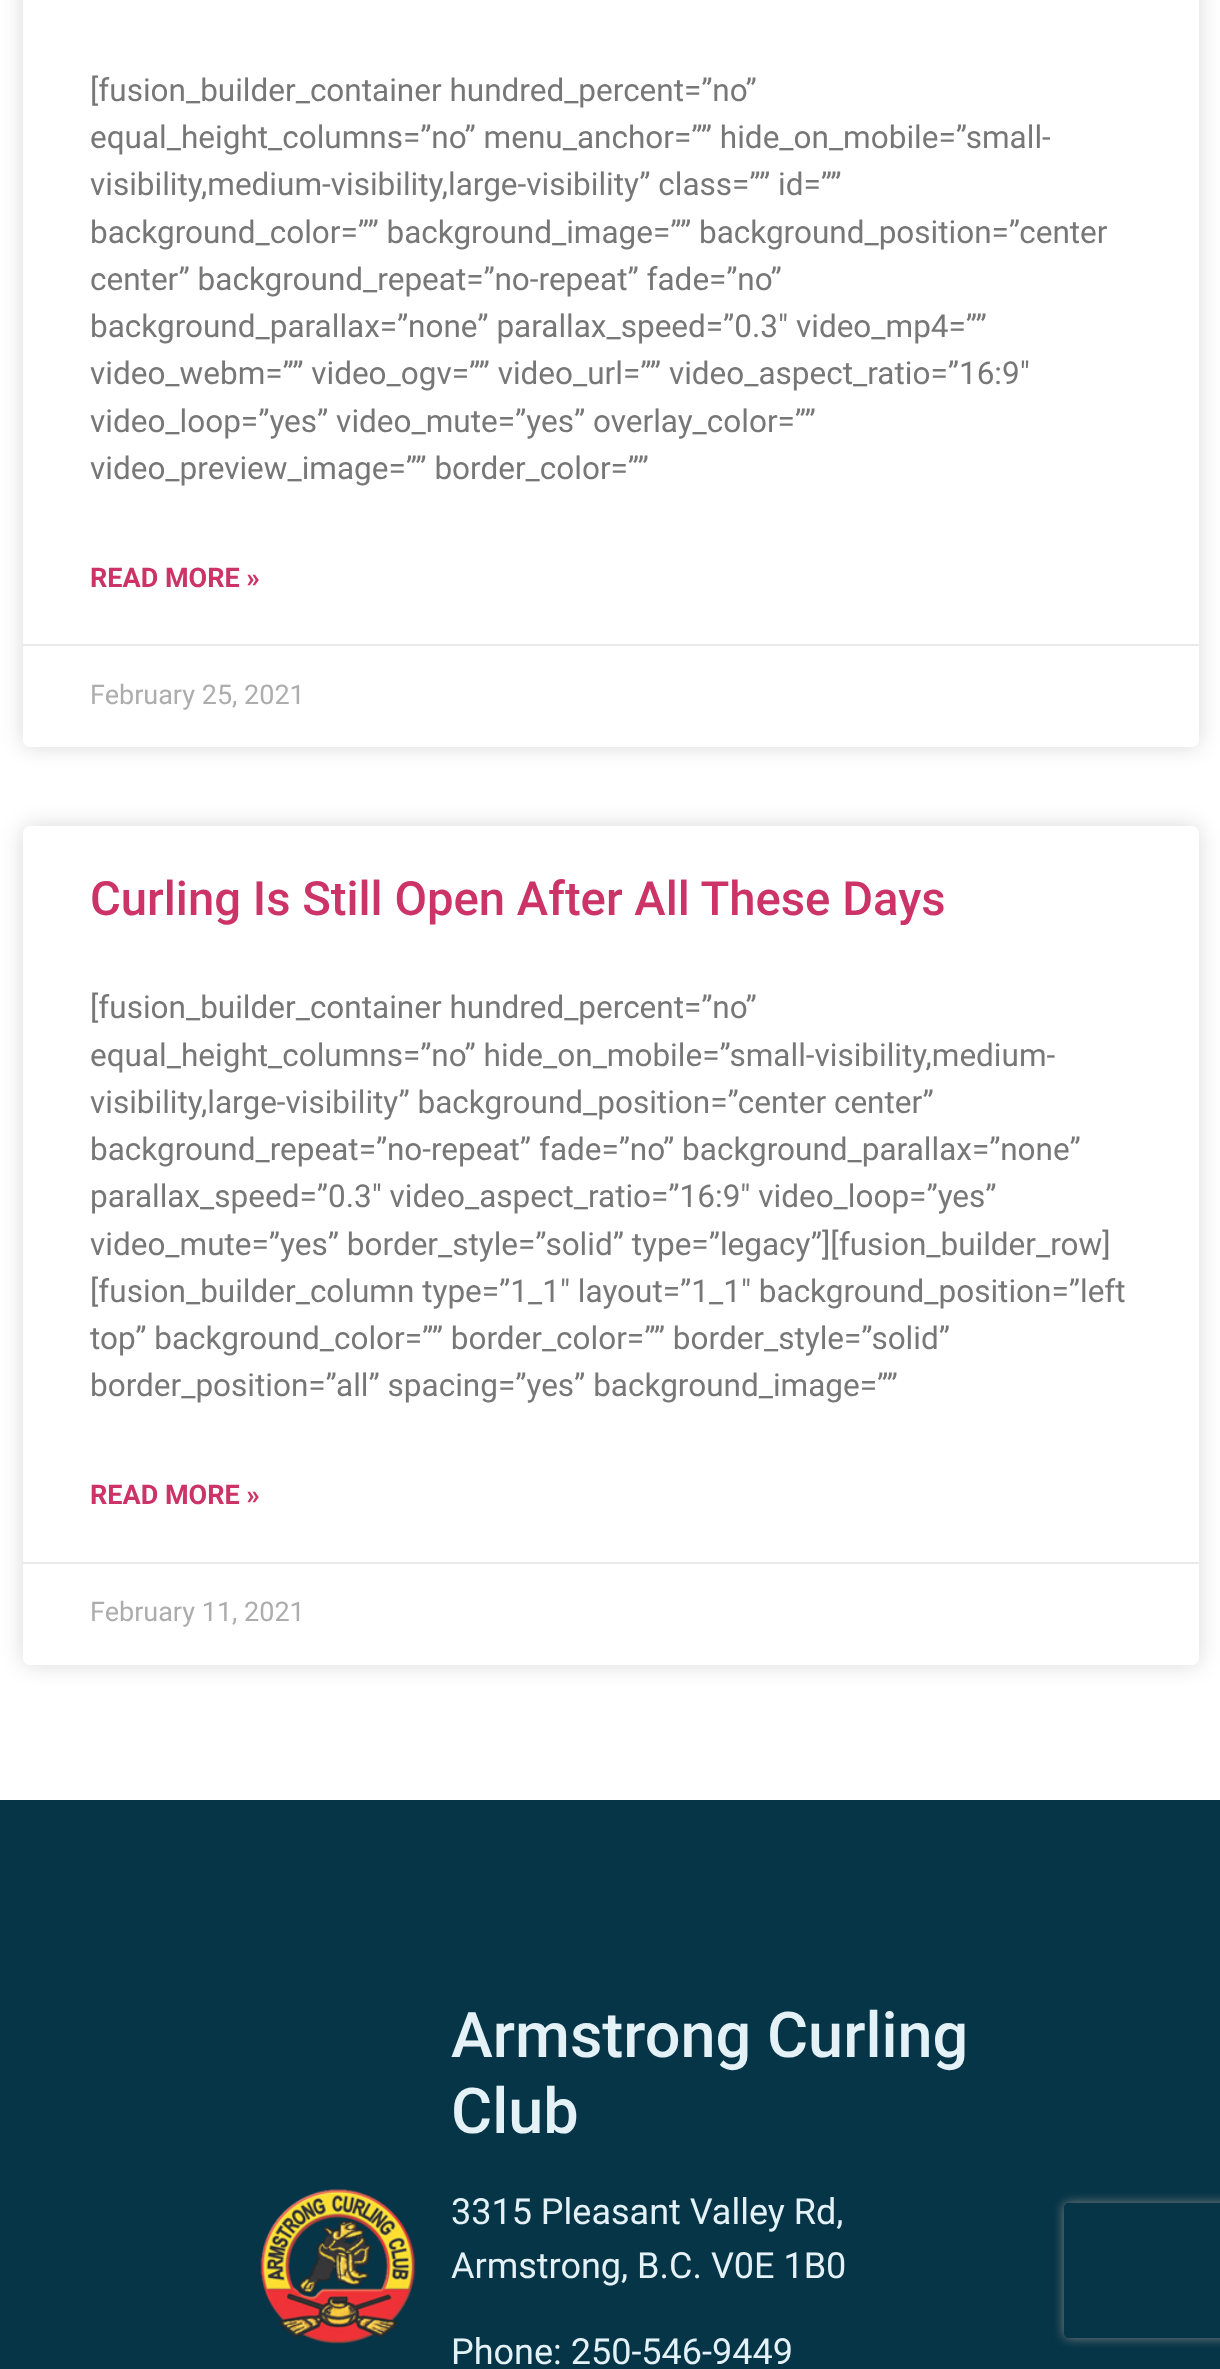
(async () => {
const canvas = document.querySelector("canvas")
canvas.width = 1220
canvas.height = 2369
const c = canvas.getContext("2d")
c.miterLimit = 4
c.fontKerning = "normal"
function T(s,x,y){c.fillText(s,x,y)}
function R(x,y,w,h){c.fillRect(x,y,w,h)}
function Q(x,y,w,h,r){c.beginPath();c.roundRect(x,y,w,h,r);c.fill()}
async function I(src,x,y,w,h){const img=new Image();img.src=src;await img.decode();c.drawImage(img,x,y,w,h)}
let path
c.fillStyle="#fff"
R(0,0,1220,2369)
c.fillStyle="#00000026"
c.filter="blur(11px)"
c.beginPath()
c.roundRect(23,-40,1176,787,7)
c.fill()
c.filter="none"
c.fillStyle="#fff"
Q(23,-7,1176,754,7)
c.font="31.5px Roboto"
c.fillStyle="#777"
T("[fusion_builder_container hundred_percent=”no”",90,101)
T("equal_height_columns=”no” menu_anchor=”” hide_on_mobile=”small-",90,148)
T("visibility,medium-visibility,large-visibility” class=”” id=””",90,195)
T("background_color=”” background_image=”” background_position=”center",90,243)
T("center” background_repeat=”no-repeat” fade=”no”",90,290)
T("background_parallax=”none” parallax_speed=”0.3″ video_mp4=””",90,337)
T("video_webm=”” video_ogv=”” video_url=”” video_aspect_ratio=”16:9″",90,384)
T("video_loop=”yes” video_mute=”yes” overlay_color=””",90,432)
T("video_preview_image=”” border_color=””",90,479)
c.font="bold 27px Roboto"
c.fillStyle="#c36"
T("READ MORE »",90,587)
c.fillStyle="#eaeaea"
R(23,644,1176,2)
c.font="27px Roboto"
c.fillStyle="#adadad"
T("February 25, 2021",90,704)
c.fillStyle="#00000026"
c.filter="blur(11px)"
c.beginPath()
c.roundRect(23,826,1176,839,7)
c.fill()
c.filter="none"
c.fillStyle="#fff"
Q(23,826,1176,839,7)
c.font="500 47.25px Roboto"
c.fillStyle="#c36"
T("Curling Is Still Open After All These Days",90,915)
c.font="31.5px Roboto"
c.fillStyle="#777"
T("[fusion_builder_container hundred_percent=”no”",90,1018)
T("equal_height_columns=”no” hide_on_mobile=”small-visibility,medium-",90,1066)
T("visibility,large-visibility” background_position=”center center”",90,1113)
T("background_repeat=”no-repeat” fade=”no” background_parallax=”none”",90,1160)
T("parallax_speed=”0.3″ video_aspect_ratio=”16:9″ video_loop=”yes”",90,1207)
T("video_mute=”yes” border_style=”solid” type=”legacy”][fusion_builder_row]",90,1255)
T("[fusion_builder_column type=”1_1″ layout=”1_1″ background_position=”left",90,1302)
T("top” background_color=”” border_color=”” border_style=”solid”",90,1349)
T("border_position=”all” spacing=”yes” background_image=””",90,1396)
c.font="bold 27px Roboto"
c.fillStyle="#c36"
T("READ MORE »",90,1504)
c.fillStyle="#eaeaea"
R(23,1562,1176,2)
c.font="27px Roboto"
c.fillStyle="#adadad"
T("February 11, 2021",90,1621)
c.fillStyle="#063547"
R(0,1800,1220,569)
await I("1.png",260,2189,156,155)
c.font="500 63px Roboto"
c.fillStyle="#e4f2f7"
T("Armstrong Curling",451,2057)
T("Club",451,2133)
c.font="36px Roboto"
T("3315 Pleasant Valley Rd,",451,2224)
T("Armstrong, B.C. V0E 1B0",451,2278)
T("Phone: 250-546-9449",451,2364)
c.save()
path = new Path2D("M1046 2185h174v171h-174zm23 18h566c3 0 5 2 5 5v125c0 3-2 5-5 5h-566c-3 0-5-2-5-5v-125c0-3 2-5 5-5z")
c.clip(path,"evenodd")
c.fillStyle="#808080"
c.filter="blur(5.5px)"
c.beginPath()
c.roundRect(1064,2203,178,135,5)
c.fill()
c.filter="none"
c.restore()
})()
